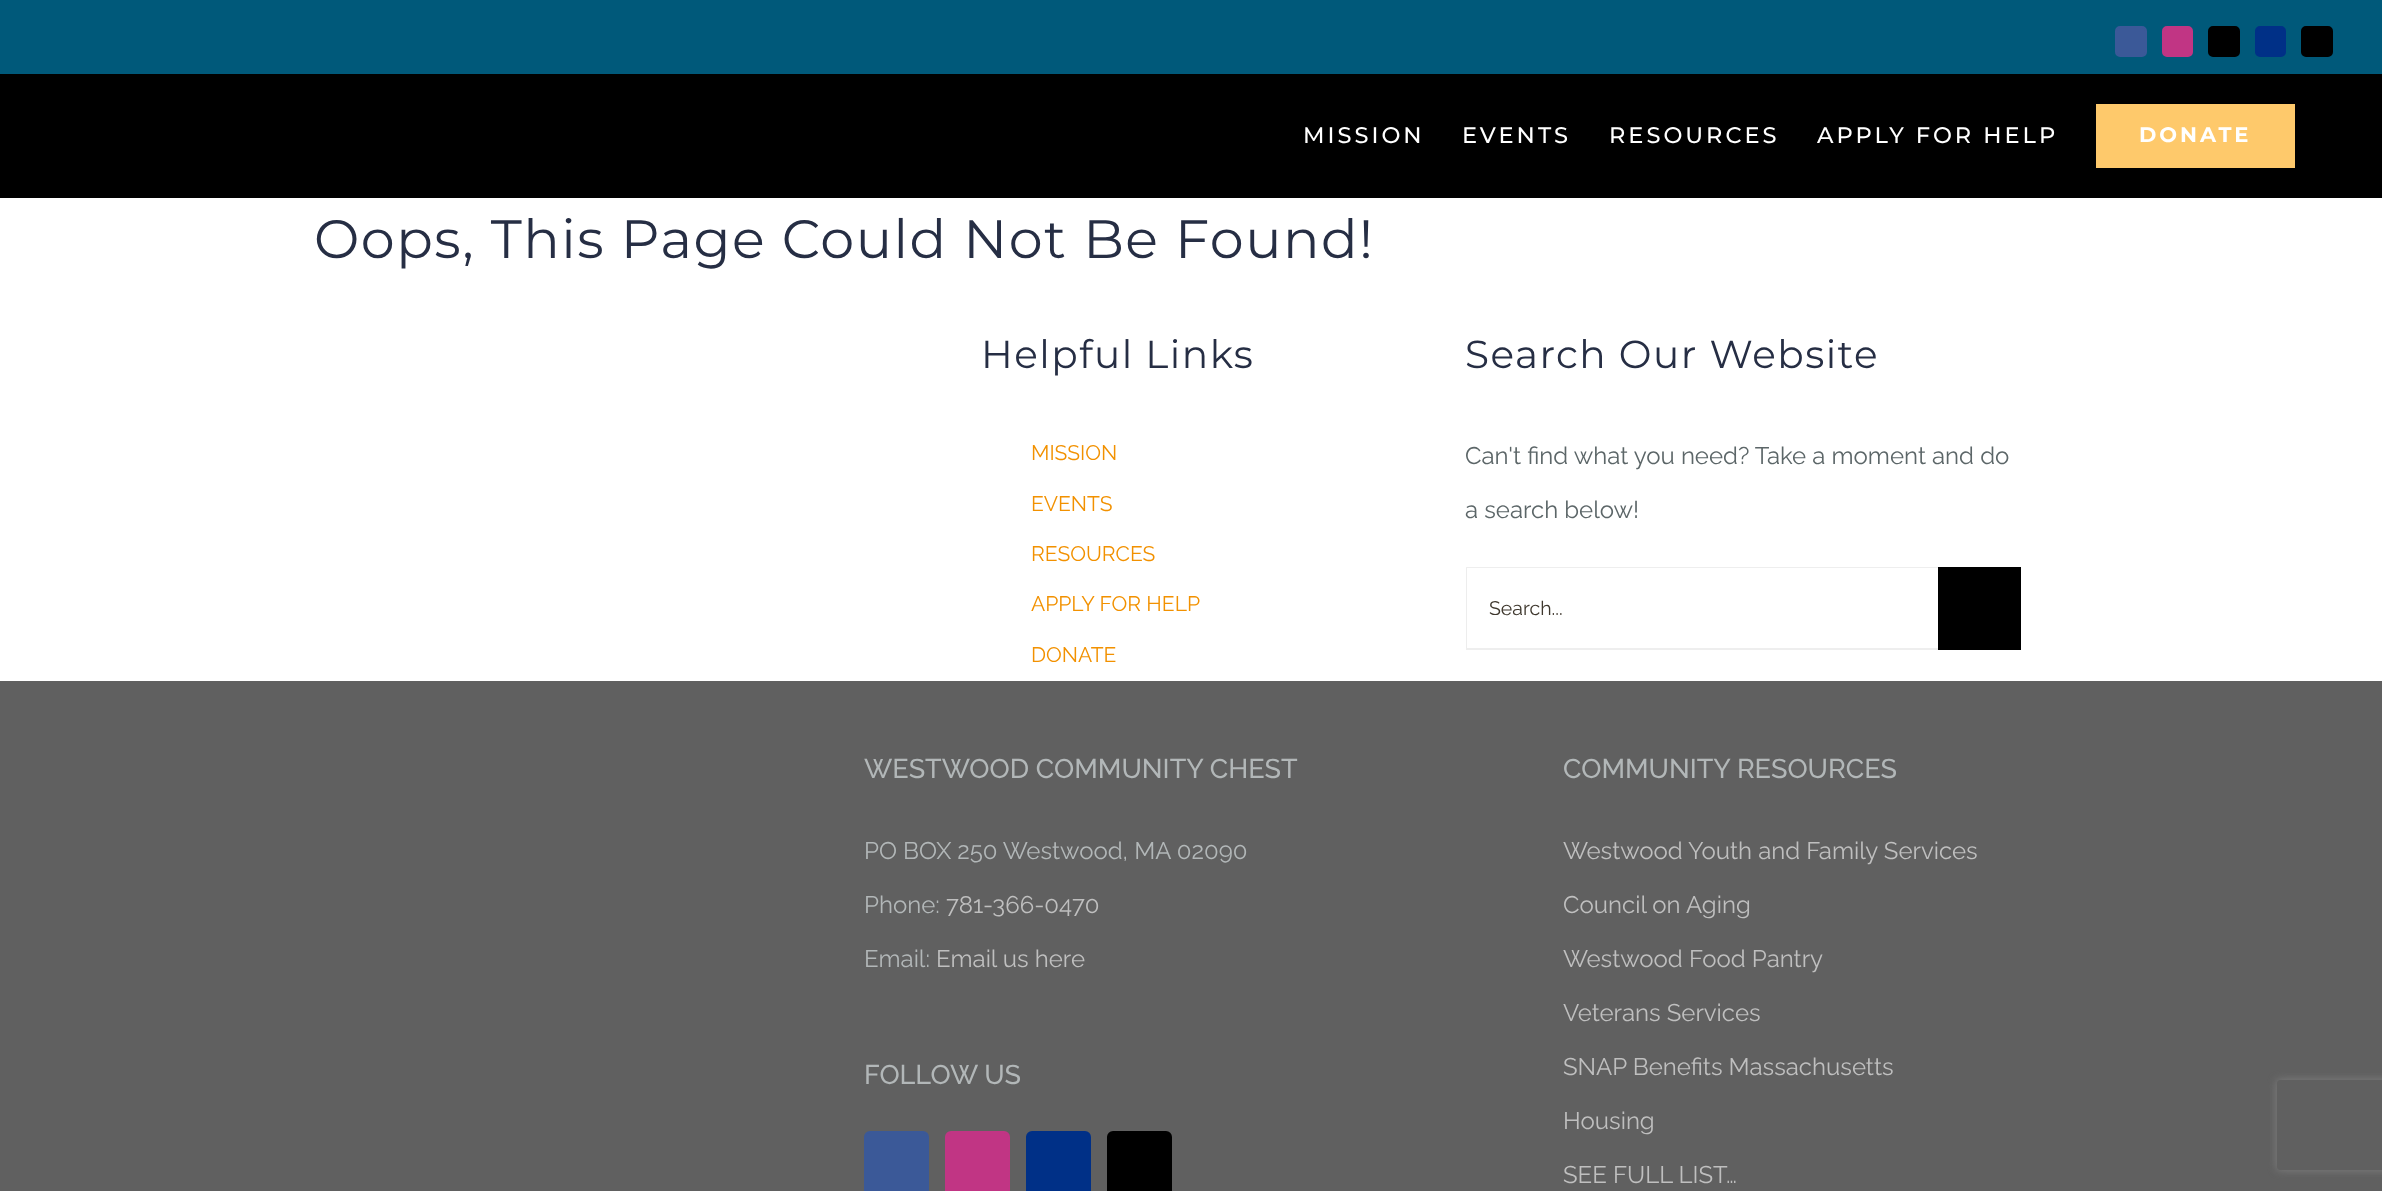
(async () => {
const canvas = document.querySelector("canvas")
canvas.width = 2382
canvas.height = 1191
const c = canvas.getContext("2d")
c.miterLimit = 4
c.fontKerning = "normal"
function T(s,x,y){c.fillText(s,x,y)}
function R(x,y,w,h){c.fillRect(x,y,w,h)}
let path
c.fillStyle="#fff"
R(0,0,2382,1191)
c.fillStyle="#00597a"
R(0,0,2382,74)
c.fillStyle="#3b5998"
c.beginPath()
c.roundRect(2116,27,30,29,4)
c.fill()
c.strokeStyle="#3b5998"
c.lineWidth=2
c.stroke()
c.fillStyle="#c13584"
c.beginPath()
c.roundRect(2163,27,29,29,4)
c.fill()
c.strokeStyle="#c13584"
c.stroke()
c.fillStyle="#000"
c.beginPath()
c.roundRect(2209,27,30,29,4)
c.fill()
c.strokeStyle="#000"
c.stroke()
c.fillStyle="#003087"
c.beginPath()
c.roundRect(2256,27,29,29,4)
c.fill()
c.strokeStyle="#003087"
c.stroke()
c.fillStyle="#000"
c.beginPath()
c.roundRect(2302,27,30,29,4)
c.fill()
c.strokeStyle="#000"
c.stroke()
R(0,74,2382,124)
c.letterSpacing="3px"
c.font="500 22.5px Montserrat"
c.fillStyle="#fff"
T("MISSION",1303,143)
T("EVENTS",1462,143)
T("RESOURCES",1609,143)
T("APPLY FOR HELP",1817,143)
c.fillStyle="#fec96b"
R(2096,104,199,64)
c.font="bold 21px Montserrat"
c.fillStyle="#fff"
T("DONATE",2139,142)
c.letterSpacing="1.5px"
c.font="54px Montserrat"
c.fillStyle="#262e44"
T("Oops, This Page Could Not Be Found!",314,258)
c.font="39px Montserrat"
T("Helpful Links",981,368)
c.letterSpacing="0px"
c.font="21px Raleway"
c.fillStyle="#f29100"
T("MISSION",1031,460)
T("EVENTS",1031,511)
T("RESOURCES",1031,561)
T("APPLY FOR HELP",1031,611)
T("DONATE",1031,662)
c.letterSpacing="1.5px"
c.font="39px Montserrat"
c.fillStyle="#262e44"
T("Search Our Website",1465,368)
c.letterSpacing="0px"
c.font="24px Raleway"
c.fillStyle="#5c6668"
T("Can't find what you need? Take a moment and do",1465,464)
T("a search below!",1465,518)
c.fillStyle="#eee"
path = new Path2D("M1466 567h472v1h-471z")
c.fill(path)
path = new Path2D("M1938 650h-472l1-2h471z")
c.fill(path)
c.fillStyle="#dcdcdc80"
path = new Path2D("M1466 650v-83l1 1v80z")
c.fill(path)
c.font="19.5px Raleway"
c.fillStyle="#3e372d"
T("Search...",1489,615)
c.fillStyle="#000"
R(1938,567,83,83)
c.fillStyle="#606060"
R(0,681,2382,510)
c.font="500 27px Raleway"
c.fillStyle="#b2b7b8"
T("WESTWOOD COMMUNITY CHEST",864,778)
c.font="24px Raleway"
T("PO BOX 250 Westwood, MA 02090",864,859)
T("Phone:",864,913)
c.fillStyle="#bfbfbf"
T("781-366-0470",946,913)
c.fillStyle="#b2b7b8"
T("Email:",864,967)
c.fillStyle="#bfbfbf"
T("Email us here",936,967)
c.font="500 27px Raleway"
c.fillStyle="#b2b7b8"
T("FOLLOW US",864,1084)
c.fillStyle="#3b5998"
c.beginPath()
c.roundRect(865,1132,63,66,5)
c.fill()
c.strokeStyle="#3b5998"
c.stroke()
c.fillStyle="#c13584"
c.beginPath()
c.roundRect(946,1132,63,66,5)
c.fill()
c.strokeStyle="#c13584"
c.stroke()
c.fillStyle="#003087"
c.beginPath()
c.roundRect(1027,1132,63,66,5)
c.fill()
c.strokeStyle="#003087"
c.stroke()
c.fillStyle="#000"
c.beginPath()
c.roundRect(1108,1132,63,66,5)
c.fill()
c.strokeStyle="#000"
c.stroke()
c.fillStyle="#b2b7b8"
T("COMMUNITY RESOURCES",1563,778)
c.font="24px Raleway"
c.fillStyle="#bfbfbf"
T("Westwood Youth and Family Services",1563,859)
T("Council on Aging",1563,913)
T("Westwood Food Pantry",1563,967)
T("Veterans Services",1563,1021)
T("SNAP Benefits Massachusetts",1563,1075)
T("Housing",1563,1129)
T("SEE FULL LIST…",1563,1183)
c.save()
path = new Path2D("M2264 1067h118v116h-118zm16 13h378c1.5 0 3 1.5 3 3v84c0 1.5-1.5 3-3 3h-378c-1.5 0-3-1.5-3-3v-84c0-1.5 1.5-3 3-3z")
c.clip(path,"evenodd")
c.fillStyle="#808080"
c.filter="blur(4px)"
c.beginPath()
c.roundRect(2277,1080,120,90,3)
c.fill()
c.filter="none"
c.restore()
})()
